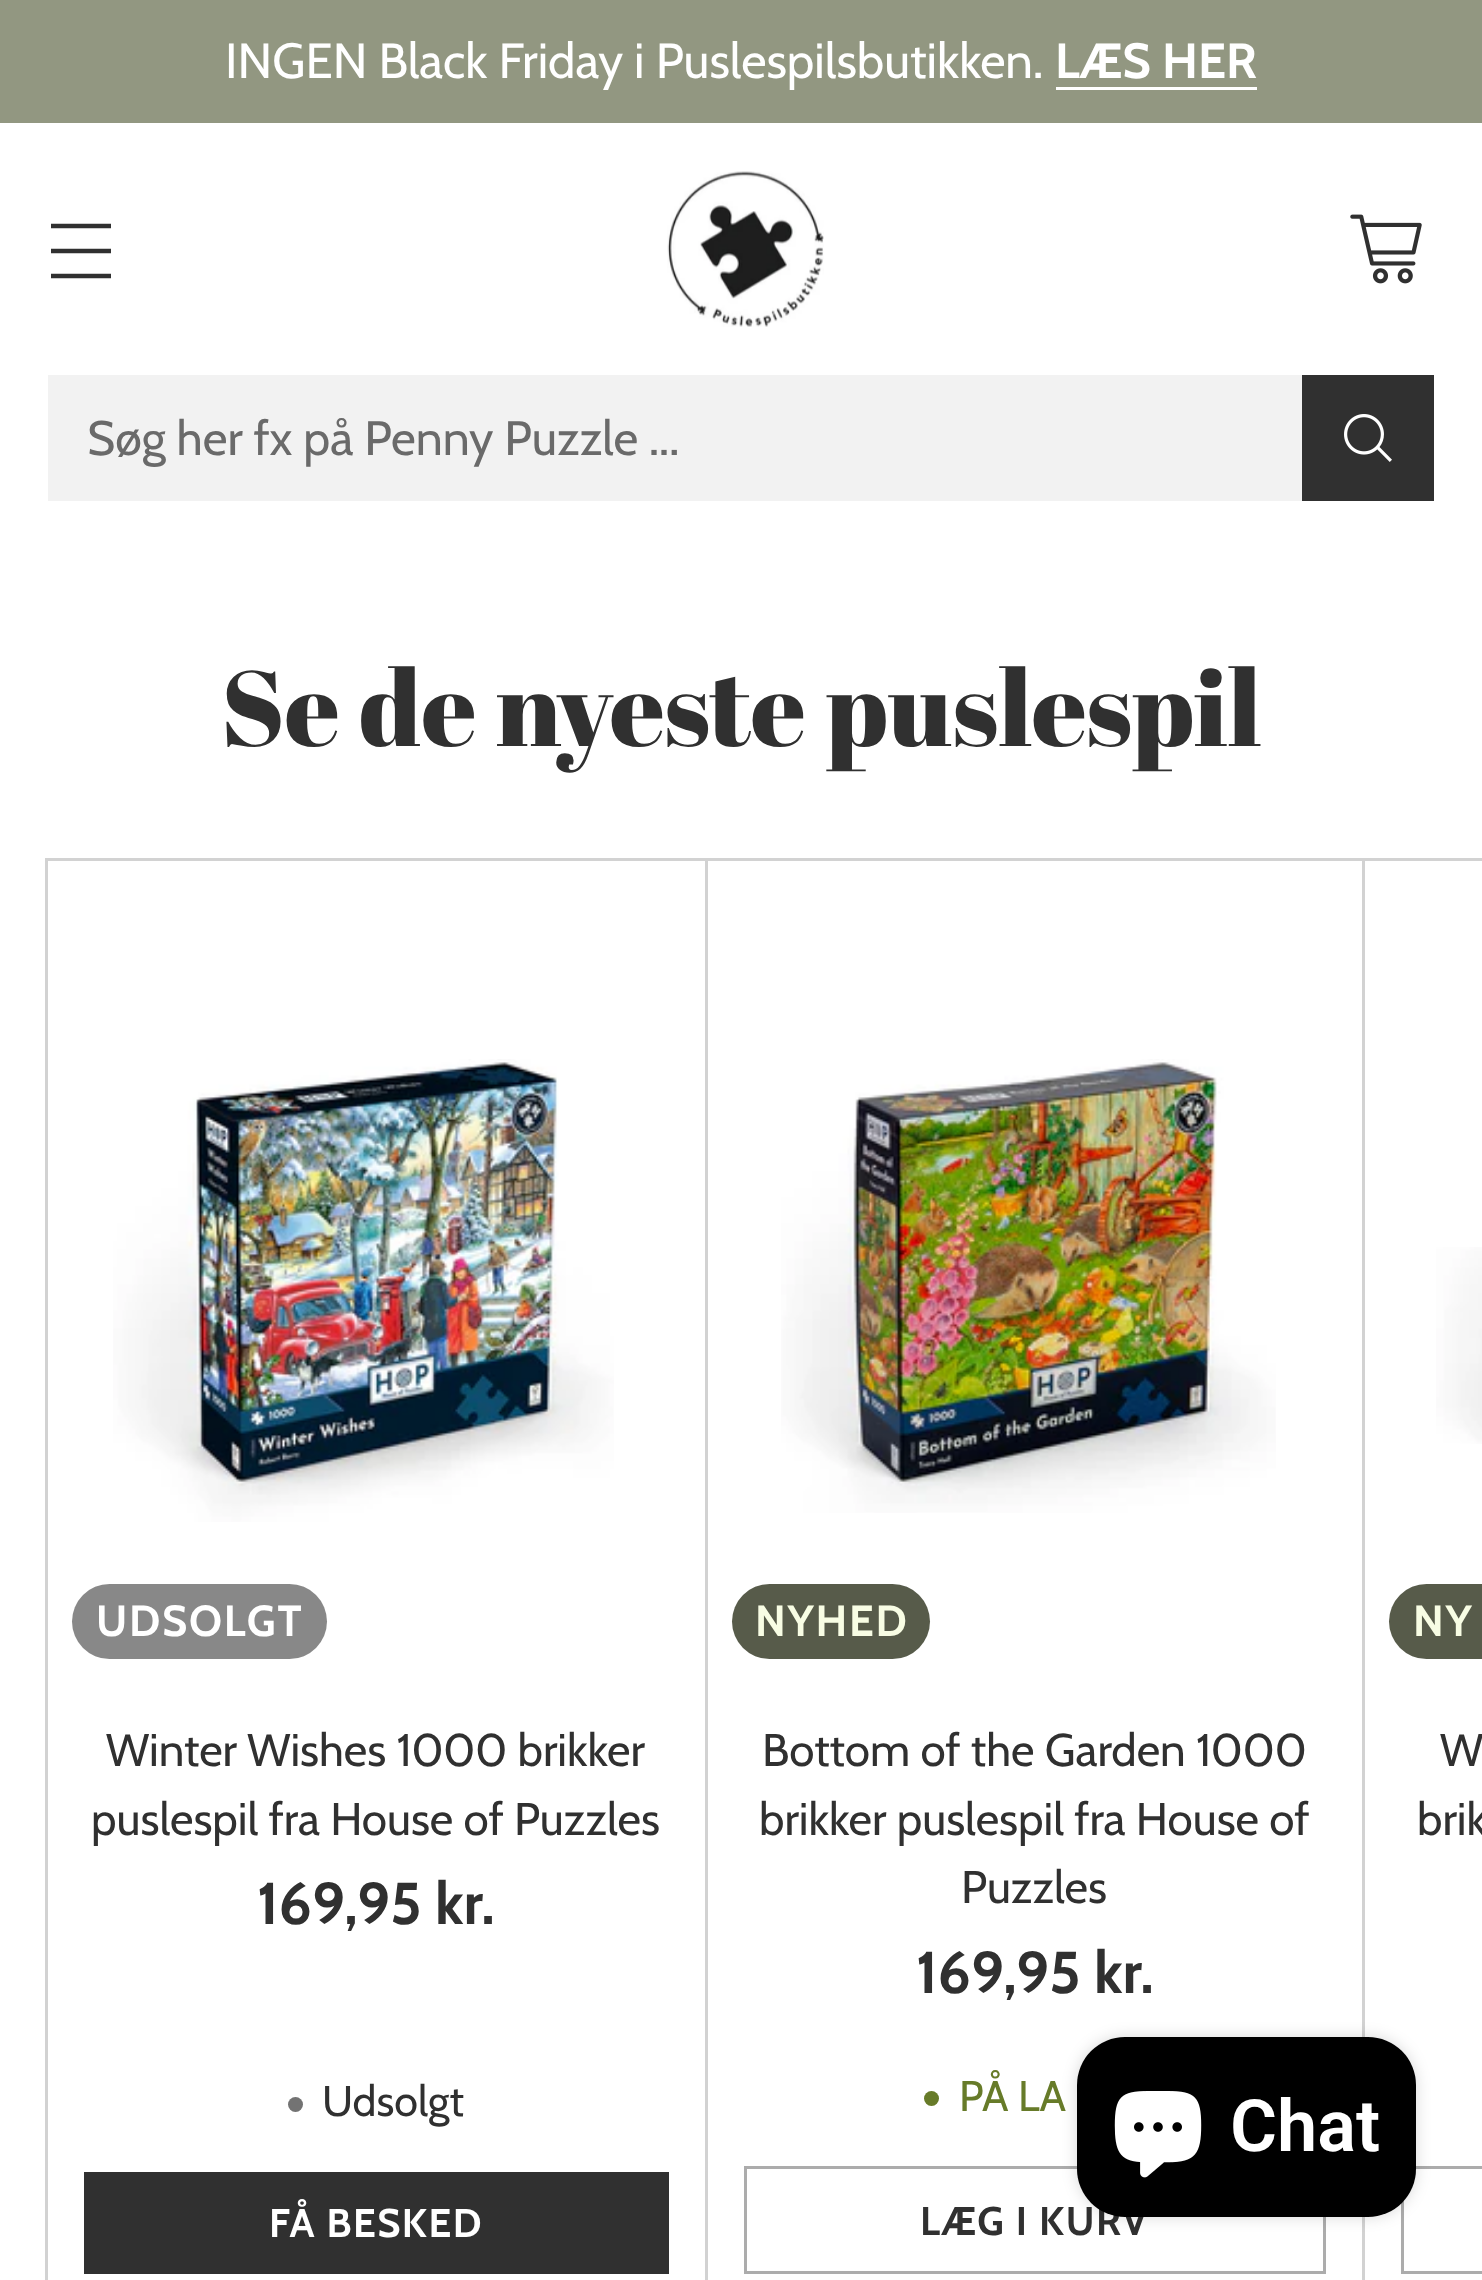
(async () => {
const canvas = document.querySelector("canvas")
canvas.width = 1482
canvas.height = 2280
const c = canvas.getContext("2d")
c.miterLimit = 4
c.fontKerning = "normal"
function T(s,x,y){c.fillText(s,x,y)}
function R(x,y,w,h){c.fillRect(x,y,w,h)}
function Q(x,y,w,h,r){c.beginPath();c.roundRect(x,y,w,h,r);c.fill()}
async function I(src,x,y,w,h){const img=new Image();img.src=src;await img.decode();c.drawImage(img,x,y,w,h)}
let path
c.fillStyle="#fff"
R(0,0,1482,2280)
c.fillStyle="#929781"
R(0,0,1482,123)
c.font="49.3px Cabin"
c.fillStyle="#fff"
T("INGEN Black Friday i Puslespilsbutikken.",225,78)
c.font="bold 49.3px Cabin"
T("LÆS HER",1055,78)
R(1056,87,201,3)
path = new Path2D("M51 251h60m-60-25h60m-60 50h60")
c.strokeStyle="#303030"
c.lineWidth=4.3
c.stroke(path)
await I("1.png",667,171,157,156)
await I("2.png",1350,214,72,70)
c.strokeStyle="#f2f2f2"
c.lineWidth=3
c.strokeRect(49.5,376.5,1383,123)
c.fillStyle="#f2f2f2"
R(51,378,1251,120)
c.font="48.25px Cabin"
c.fillStyle="#6a6a6a"
T("Søg her fx på Penny Puzzle ...",87,455)
c.fillStyle="#303030"
R(1302,375,132,126)
await I("3.png",1344,414,48,48)
c.font="106.5px Abril Fatface"
T("Se de nyeste puslespil",221,746)
c.strokeStyle="#d2d2d2"
c.strokeRect(46.5,859.5,660,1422)
await I("4.png",113,1059,501,463)
c.fillStyle="#888"
Q(72,1584,255,75,37.5)
c.letterSpacing="1.75px"
c.font="bold 43.5px Cabin"
c.fillStyle="#fff"
T("UDSOLGT",96,1636)
c.letterSpacing="0px"
c.font="45.75px Cabin"
c.fillStyle="#303030"
T("Winter Wishes 1000 brikker",106,1766)
T("puslespil fra House of Puzzles",91,1835)
c.font="bold 59px Cabin"
T("169,95 kr.",257,1924)
c.fillStyle="#737373"
c.beginPath()
c.arc(295.5,2104.5,7.5,0,7)
c.fill()
c.font="43px Cabin"
c.fillStyle="#303030"
T("Udsolgt",322,2116)
R(84,2172,585,102)
c.letterSpacing="1.5px"
c.font="bold 40px Cabin"
c.fillStyle="#fff"
T("FÅ BESKED",269,2237)
c.strokeRect(706.5,859.5,657,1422)
await I("5.png",781,1059,495,454)
c.fillStyle="#575b4a"
Q(732,1584,198,75,37.5)
c.letterSpacing="1.75px"
c.font="bold 43.5px Cabin"
c.fillStyle="#f8fde4"
T("NYHED",755,1636)
c.letterSpacing="0px"
c.font="45.75px Cabin"
c.fillStyle="#303030"
T("Bottom of the Garden 1000",762,1766)
T("brikker puslespil fra House of",759,1835)
T("Puzzles",961,1903)
c.font="bold 59px Cabin"
T("169,95 kr.",916,1993)
c.fillStyle="#677b29"
c.beginPath()
c.arc(931.5,2098.5,7.5,0,7)
c.fill()
c.font="43px Cabin"
T("PÅ LA",959,2111)
c.strokeStyle="#acacac"
c.strokeRect(745.5,2167.5,579,105)
c.letterSpacing="1.5px"
c.font="bold 40px Cabin"
c.fillStyle="#303030"
T("LÆG I KURV",920,2235)
c.strokeStyle="#d2d2d2"
c.strokeRect(1363.5,859.5,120,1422)
await I("6.png",1436,1247,46,197)
c.fillStyle="#575b4a"
c.beginPath()
c.roundRect(1389,1584,93,75,[37.5,0,0,37.5])
c.fill()
c.letterSpacing="1.75px"
c.font="bold 43.5px Cabin"
c.fillStyle="#f8fde4"
T("NY",1413,1636)
c.letterSpacing="0px"
c.font="45.75px Cabin"
c.fillStyle="#303030"
T("W",1440,1766)
T("brik",1417,1835)
c.strokeStyle="#acacac"
c.strokeRect(1402.5,2167.5,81,105)
c.fillStyle="#00000026"
c.filter="blur(7.5px)"
c.beginPath()
c.roundRect(1077,2037,339,180,48)
c.fill()
c.filter="none"
c.fillStyle="#000"
Q(1077,2037,339,180,48)
await I("7.png",1114,2091,88,87)
c.font="600 72px Roboto"
c.fillStyle="#fff"
T("Chat",1230,2151)
})()
